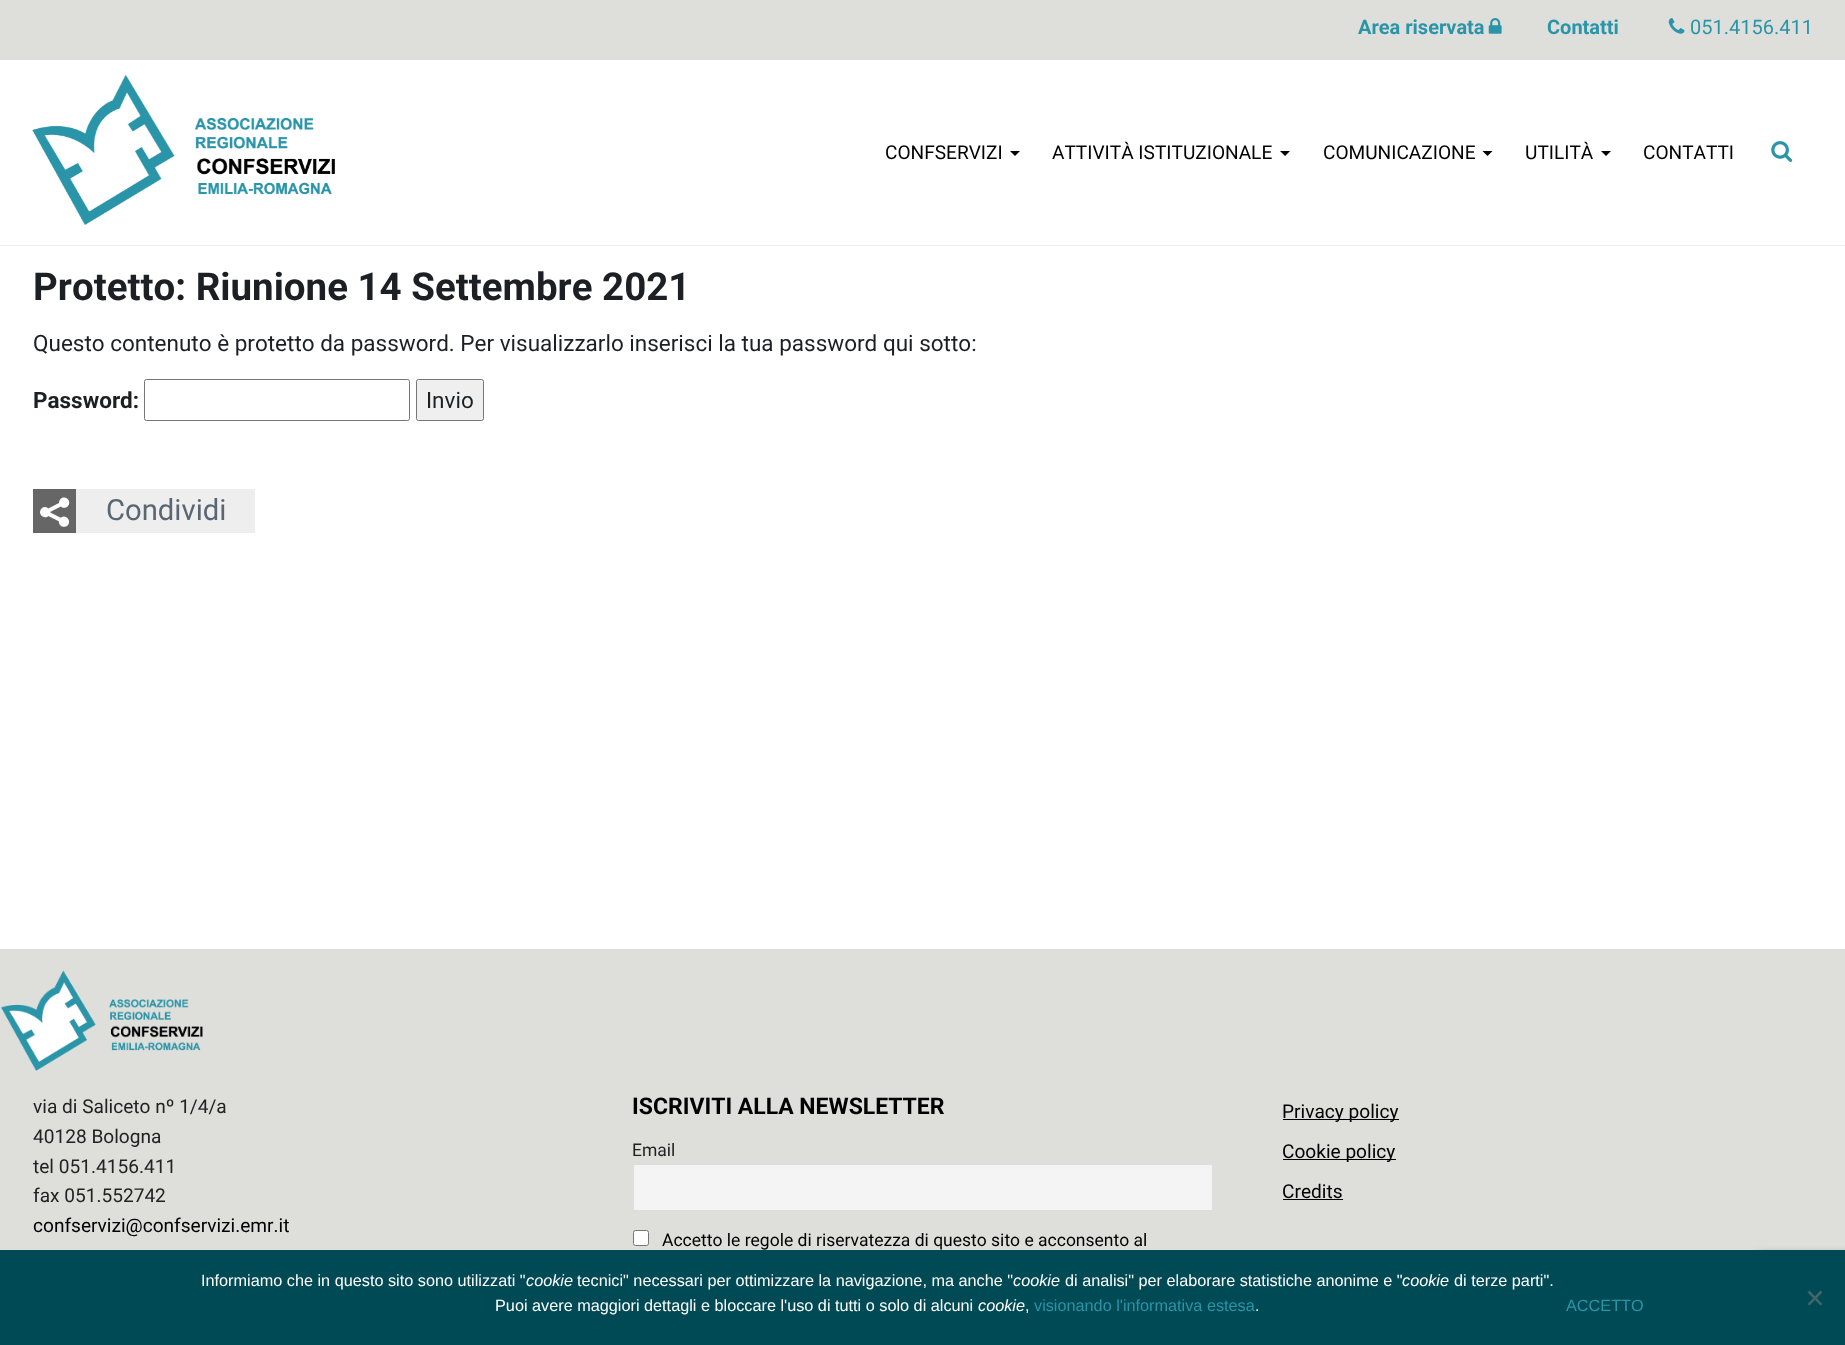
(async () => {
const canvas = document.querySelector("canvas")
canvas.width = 1845
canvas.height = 1345
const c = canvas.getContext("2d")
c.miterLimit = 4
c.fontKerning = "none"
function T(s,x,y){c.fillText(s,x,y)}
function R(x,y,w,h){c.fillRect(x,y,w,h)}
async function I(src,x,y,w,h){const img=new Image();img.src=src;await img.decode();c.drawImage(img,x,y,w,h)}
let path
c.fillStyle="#fff"
R(0,0,1845,1345)
c.fillStyle="#dedfda"
R(0,0,1845,60)
c.font="bold 20px Roboto"
c.fillStyle="#2a94a9"
T("Area riservata",1358,34)
await I("1.png",1488,18,14,16)
T("Contatti",1547,34)
await I("2.png",1668,18,17,16)
c.font="20px Roboto"
T("051.4156.411",1690,34)
await I("3.png",32,75,303,150)
c.font="19.1px Roboto"
c.fillStyle="#000"
T("CONFSERVIZI",885,159)
path = new Path2D("M1010 151h10l-5 5z")
c.fill(path)
T("ATTIVITÀ ISTITUZIONALE",1052,159)
path = new Path2D("M1280 151h10l-5 5z")
c.fill(path)
T("COMUNICAZIONE",1323,159)
path = new Path2D("M1482.5 151h10l-5 5z")
c.fill(path)
T("UTILITÀ",1525,159)
path = new Path2D("M1601 151h10l-5 5z")
c.fill(path)
T("CONTATTI",1643,159)
await I("4.png",1771,141,22,21)
c.fillStyle="#eee"
R(0,245,1845,1)
c.font="bold 38.5px Roboto"
c.fillStyle="#1c2024"
T("Protetto: Riunione 14 Settembre 2021",33,300)
c.font="22.5px Roboto"
T("Questo contenuto è protetto da password. Per visualizzarlo inserisci la tua password qui sotto:",33,351)
c.font="bold 22.5px Roboto"
T("Password:",33,408)
c.beginPath()
c.roundRect(144.5,379.5,265,41,2)
c.strokeStyle="#767676"
c.stroke()
c.fillStyle="#efefef"
c.beginPath()
c.roundRect(416.5,379.5,67,41,2)
c.fill()
c.stroke()
c.font="22.5px Roboto"
c.fillStyle="#1c2024"
T("Invio",426,408)
c.fillStyle="#eee"
R(76,489,179,44)
c.fillStyle="#666"
R(33,489,43,44)
c.font="29.25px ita"
c.fillStyle="#fff"
T("📢",40,525)
c.font="29.25px Roboto"
c.fillStyle="#5a6772"
T("Condividi",106,520)
c.fillStyle="#dedfda"
R(0,949,1845,301)
await I("5.png",1,970,202,101)
c.font="19.1px Roboto"
c.fillStyle="#222"
T("via di Saliceto nº 1/4/a",33,1113)
T("40128 Bologna",33,1143)
T("tel 051.4156.411",33,1173)
T("fax 051.552742",33,1202)
c.fillStyle="#000"
T("confservizi@confservizi.emr.it",33,1232)
c.font="bold 23px Roboto"
T("ISCRIVITI ALLA NEWSLETTER",632,1114)
c.font="17.5px Roboto"
c.fillStyle="#222"
T("Email",632,1156)
c.fillStyle="#f4f4f4"
c.beginPath()
c.rect(633.5,1164.5,579,46)
c.fill()
c.strokeStyle="#ddd"
c.stroke()
c.fillStyle="#fff"
c.beginPath()
c.roundRect(633.5,1230.5,15,15,2)
c.fill()
c.strokeStyle="#767676"
c.stroke()
c.fillStyle="#000"
T("Accetto le regole di riservatezza di questo sito e acconsento al",662,1246)
R(1283,1119,116,1)
c.font="19.1px Roboto"
T("Privacy policy",1282,1118)
R(1283,1159,113,1)
T("Cookie policy",1282,1158)
T("Credits",1282,1198)
R(1283,1199,60,1)
c.fillStyle="#808080"
c.filter="blur(3px)"
c.beginPath()
c.roundRect(1758,1253,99,75,2.5)
c.fill()
c.filter="none"
c.fillStyle="#004a55"
R(0,1250,1845,95)
c.font="16.25px Liberation Sans"
c.fillStyle="#fff"
T("Informiamo che in questo sito sono utilizzati \"",201,1286)
c.font="italic 16.25px Liberation Sans"
T("cookie",526,1286)
c.font="16.25px Liberation Sans"
T("tecnici\" necessari per ottimizzare la navigazione, ma anche \"",577,1286)
c.font="italic 16.25px Liberation Sans"
T("cookie",1013,1286)
c.font="16.25px Liberation Sans"
T("di analisi\" per elaborare statistiche anonime e \"",1065,1286)
c.font="italic 16.25px Liberation Sans"
T("cookie",1402,1286)
c.font="16.25px Liberation Sans"
T("di terze parti\".",1454,1286)
T("Puoi avere maggiori dettagli e bloccare l'uso di tutti o solo di alcuni",495,1311)
c.font="italic 16.25px Liberation Sans"
T("cookie",978,1311)
c.font="16.25px Liberation Sans"
T(",",1025,1311)
c.fillStyle="#2a94a9"
T("visionando l'informativa estesa",1034,1311)
c.fillStyle="#fff"
T(".",1255,1311)
c.fillStyle="#2a94a9"
T("ACCETTO",1566,1311)
c.fillStyle="#40656b"
path = new Path2D("M1820.5 1290.5l2 2l-13 13l-2-1.5z")
c.fill(path)
path = new Path2D("M1807.5 1292.5l2-2l13 13.5l-2 1.5z")
c.fill(path)
})()
